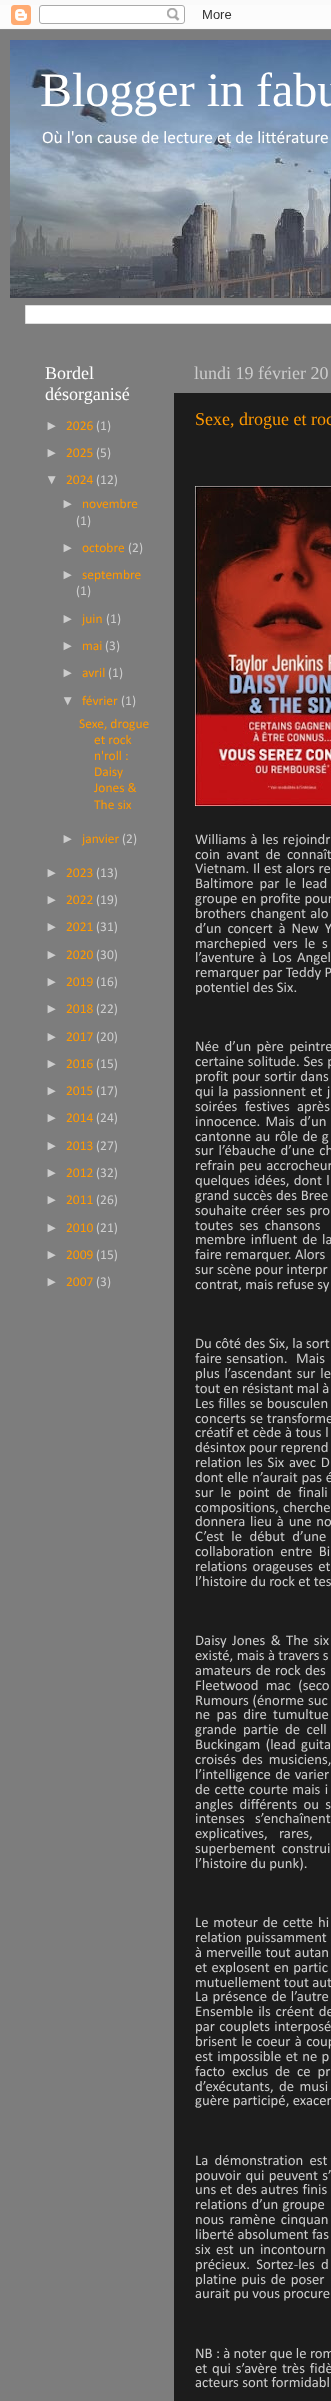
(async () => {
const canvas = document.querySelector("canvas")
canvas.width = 331
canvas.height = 2401
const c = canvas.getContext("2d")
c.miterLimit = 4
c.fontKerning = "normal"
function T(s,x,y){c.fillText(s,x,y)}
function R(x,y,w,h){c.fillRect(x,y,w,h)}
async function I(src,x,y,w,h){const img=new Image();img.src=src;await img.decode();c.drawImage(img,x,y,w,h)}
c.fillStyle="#fafafa"
R(0,0,331,2401)
c.fillStyle="#00000026"
c.filter="blur(1.5px)"
c.beginPath()
c.rect(0,30,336,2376)
c.fill()
c.filter="none"
await I("1.png",0,5,331,25)
c.fillStyle="#7d7d7d"
R(0,30,331,2371)
await I("2.png",10,40,321,258)
c.font="48px Liberation Serif"
c.fillStyle="#fff"
T("Blogger in fabu",40,106)
c.font="17.5px Calibri"
T("Où l'on cause de lecture et de littérature",42,143)
c.beginPath()
c.rect(25.5,305.5,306,18)
c.fill()
c.strokeStyle="#ddd"
c.stroke()
c.font="18px Liberation Serif"
T("Bordel",45,379)
T("désorganisé",45,400)
c.font="13.5px Liberation Sans"
c.fillStyle="#ccc"
T("►",45,430)
c.font="13.5px Calibri"
c.fillStyle="#f90"
T("2026",66,430)
c.fillStyle="#ccc"
T("(1)",96,430)
c.font="13.5px Liberation Sans"
T("►",45,457)
c.font="13.5px Calibri"
c.fillStyle="#f90"
T("2025",66,457)
c.fillStyle="#ccc"
T("(5)",96,457)
c.font="13.5px Liberation Sans"
T("▼",45,484)
c.font="13.5px Calibri"
c.fillStyle="#f90"
T("2024",66,484)
c.fillStyle="#ccc"
T("(12)",96,484)
c.font="13.5px Liberation Sans"
T("►",61,508)
c.font="13.5px Calibri"
c.fillStyle="#f90"
T("novembre",82,508)
c.fillStyle="#ccc"
T("(1)",76,525)
c.font="13.5px Liberation Sans"
T("►",61,552)
c.font="13.5px Calibri"
c.fillStyle="#f90"
T("octobre",82,552)
c.fillStyle="#ccc"
T("(2)",128,552)
c.font="13.5px Liberation Sans"
T("►",61,579)
c.font="13.5px Calibri"
c.fillStyle="#f90"
T("septembre",82,579)
c.fillStyle="#ccc"
T("(1)",76,595)
c.font="13.5px Liberation Sans"
T("►",61,623)
c.font="13.5px Calibri"
c.fillStyle="#f90"
T("juin",82,623)
c.fillStyle="#ccc"
T("(1)",106,623)
c.font="13.5px Liberation Sans"
T("►",61,650)
c.font="13.5px Calibri"
c.fillStyle="#f90"
T("mai",82,650)
c.fillStyle="#ccc"
T("(3)",105,650)
c.font="13.5px Liberation Sans"
T("►",61,677)
c.font="13.5px Calibri"
c.fillStyle="#f90"
T("avril",82,677)
c.fillStyle="#ccc"
T("(1)",108,677)
c.font="13.5px Liberation Sans"
T("▼",61,705)
c.font="13.5px Calibri"
c.fillStyle="#f90"
T("février",82,705)
c.fillStyle="#ccc"
T("(1)",121,705)
c.fillStyle="#f90"
T("Sexe, drogue",79,728)
T("et rock",94,744)
T("n'roll :",94,760)
T("Daisy",94,776)
T("Jones &",94,792)
T("The six",94,809)
c.font="13.5px Liberation Sans"
c.fillStyle="#ccc"
T("►",61,843)
c.font="13.5px Calibri"
c.fillStyle="#f90"
T("janvier",82,843)
c.fillStyle="#ccc"
T("(2)",122,843)
c.font="13.5px Liberation Sans"
T("►",45,877)
c.font="13.5px Calibri"
c.fillStyle="#f90"
T("2023",66,877)
c.fillStyle="#ccc"
T("(13)",96,877)
c.font="13.5px Liberation Sans"
T("►",45,904)
c.font="13.5px Calibri"
c.fillStyle="#f90"
T("2022",66,904)
c.fillStyle="#ccc"
T("(19)",96,904)
c.font="13.5px Liberation Sans"
T("►",45,931)
c.font="13.5px Calibri"
c.fillStyle="#f90"
T("2021",66,931)
c.fillStyle="#ccc"
T("(31)",96,931)
c.font="13.5px Liberation Sans"
T("►",45,959)
c.font="13.5px Calibri"
c.fillStyle="#f90"
T("2020",66,959)
c.fillStyle="#ccc"
T("(30)",96,959)
c.font="13.5px Liberation Sans"
T("►",45,986)
c.font="13.5px Calibri"
c.fillStyle="#f90"
T("2019",66,986)
c.fillStyle="#ccc"
T("(16)",96,986)
c.font="13.5px Liberation Sans"
T("►",45,1013)
c.font="13.5px Calibri"
c.fillStyle="#f90"
T("2018",66,1013)
c.fillStyle="#ccc"
T("(22)",96,1013)
c.font="13.5px Liberation Sans"
T("►",45,1041)
c.font="13.5px Calibri"
c.fillStyle="#f90"
T("2017",66,1041)
c.fillStyle="#ccc"
T("(20)",96,1041)
c.font="13.5px Liberation Sans"
T("►",45,1068)
c.font="13.5px Calibri"
c.fillStyle="#f90"
T("2016",66,1068)
c.fillStyle="#ccc"
T("(15)",96,1068)
c.font="13.5px Liberation Sans"
T("►",45,1095)
c.font="13.5px Calibri"
c.fillStyle="#f90"
T("2015",66,1095)
c.fillStyle="#ccc"
T("(17)",96,1095)
c.font="13.5px Liberation Sans"
T("►",45,1122)
c.font="13.5px Calibri"
c.fillStyle="#f90"
T("2014",66,1122)
c.fillStyle="#ccc"
T("(24)",96,1122)
c.font="13.5px Liberation Sans"
T("►",45,1150)
c.font="13.5px Calibri"
c.fillStyle="#f90"
T("2013",66,1150)
c.fillStyle="#ccc"
T("(27)",96,1150)
c.font="13.5px Liberation Sans"
T("►",45,1177)
c.font="13.5px Calibri"
c.fillStyle="#f90"
T("2012",66,1177)
c.fillStyle="#ccc"
T("(32)",96,1177)
c.font="13.5px Liberation Sans"
T("►",45,1204)
c.font="13.5px Calibri"
c.fillStyle="#f90"
T("2011",66,1204)
c.fillStyle="#ccc"
T("(26)",96,1204)
c.font="13.5px Liberation Sans"
T("►",45,1232)
c.font="13.5px Calibri"
c.fillStyle="#f90"
T("2010",66,1232)
c.fillStyle="#ccc"
T("(21)",96,1232)
c.font="13.5px Liberation Sans"
T("►",45,1259)
c.font="13.5px Calibri"
c.fillStyle="#f90"
T("2009",66,1259)
c.fillStyle="#ccc"
T("(15)",96,1259)
c.font="13.5px Liberation Sans"
T("►",45,1286)
c.font="13.5px Calibri"
c.fillStyle="#f90"
T("2007",66,1286)
c.fillStyle="#ccc"
T("(3)",96,1286)
c.font="18px Liberation Serif"
T("lundi 19 février 20",194,379)
c.fillStyle="#1c1c1c"
R(174,393,157,2008)
c.fillStyle="#f90"
T("Sexe, drogue et roc",195,425)
await I("3.png",195,486,136,320)
c.wordSpacing="1px"
c.font="14.75px Calibri"
c.fillStyle="#ccc"
T("Williams à les rejoindr",195,844)
c.wordSpacing="3px"
T("coin avant de connaît",195,859)
c.wordSpacing="0.5px"
T("Vietnam. Il est alors re",195,873)
c.wordSpacing="2.5px"
T("Baltimore par le lead",195,888)
c.wordSpacing="0.5px"
T("groupe en profite pour",195,903)
c.wordSpacing="1px"
T("brothers changent alo",195,918)
c.wordSpacing="2.5px"
T("d’un concert à New Y",195,933)
c.wordSpacing="3.5px"
T("marchepied vers le s",195,948)
c.wordSpacing="2px"
T("l’aventure à Los Angel",195,962)
c.wordSpacing="0px"
T("remarquer par Teddy P",195,977)
T("potentiel des Six.",195,992)
c.wordSpacing="2px"
T("Née d’un père peintre",195,1051)
c.wordSpacing="0.5px"
T("certaine solitude. Ses p",195,1066)
T("profit pour sortir dans",195,1081)
c.wordSpacing="1px"
T("qui la passionnent et j",195,1096)
c.wordSpacing="4px"
T("soirées festives après",195,1111)
c.wordSpacing="2px"
T("innocence. Mais d’un",195,1126)
c.wordSpacing="1px"
T("cantonne au rôle de g",195,1141)
c.wordSpacing="1.5px"
T("sur l’ébauche d’une ch",195,1155)
c.wordSpacing="1px"
T("refrain peu accrocheur",195,1170)
T("quelques idées, dont l",195,1185)
c.wordSpacing="0.5px"
T("grand succès des Bree",195,1200)
c.wordSpacing="1px"
T("souhaite créer ses pro",195,1215)
c.wordSpacing="3px"
T("toutes ses chansons",195,1230)
c.wordSpacing="1.5px"
T("membre influent de la",195,1244)
c.wordSpacing="0px"
T("faire remarquer. Alors",195,1259)
T("sur scène pour interpr",195,1274)
T("contrat, mais refuse sy",195,1289)
T("Du côté des Six, la sort",195,1348)
c.wordSpacing="1px"
T("faire sensation.  Mais",195,1363)
c.wordSpacing="1.5px"
T("plus l’ascendant sur le",195,1378)
c.wordSpacing="0px"
T("tout en résistant mal à",195,1393)
c.wordSpacing="0.5px"
T("Les filles se bousculen",195,1408)
T("concerts se transforme",195,1423)
c.wordSpacing="0.25px"
T("créatif et cède à tous l",195,1437)
c.wordSpacing="0px"
T("désintox pour reprend",195,1452)
c.wordSpacing="1.5px"
T("relation les Six avec D",195,1467)
c.wordSpacing="0.5px"
T("dont elle n’aurait pas é",195,1482)
c.wordSpacing="3.5px"
T("sur le point de finali",195,1497)
c.wordSpacing="1px"
T("compositions, cherche",195,1512)
c.wordSpacing="1.5px"
T("donnera lieu à une no",195,1526)
c.wordSpacing="4px"
T("C’est le début d’une",195,1541)
c.wordSpacing="3px"
T("collaboration entre Bi",195,1556)
c.wordSpacing="2px"
T("relations orageuses et",195,1571)
c.wordSpacing="0px"
T("l’histoire du rock et tes",195,1586)
c.wordSpacing="2px"
T("Daisy Jones & The six",195,1645)
c.wordSpacing="0px"
T("existé, mais à travers s",195,1660)
c.wordSpacing="1px"
T("amateurs de rock des",195,1675)
c.wordSpacing="4px"
T("Fleetwood mac (seco",195,1690)
c.wordSpacing="0.5px"
T("Rumours (énorme suc",195,1705)
c.wordSpacing="3px"
T("ne pas dire tumultue",195,1719)
T("grande partie de cell",195,1734)
c.wordSpacing="2px"
T("Buckingam (lead guita",195,1749)
c.wordSpacing="2.5px"
T("croisés des musiciens,",195,1764)
c.wordSpacing="1px"
T("l’intelligence de varier",195,1779)
T("de cette courte mais i",195,1794)
c.wordSpacing="3px"
T("angles différents ou s",195,1809)
c.wordSpacing="7px"
T("intenses s’enchaînent",195,1823)
c.wordSpacing="8px"
T("explicatives, rares,",195,1838)
c.wordSpacing="3px"
T("superbement construi",195,1853)
c.wordSpacing="0px"
T("l’histoire du punk).",195,1868)
c.wordSpacing="1.5px"
T("Le moteur de cette hi",195,1927)
c.wordSpacing="1px"
T("relation puissamment",195,1942)
c.wordSpacing="0.5px"
T("à merveille tout autan",195,1957)
c.wordSpacing="1px"
T("et explosent en partic",195,1972)
c.wordSpacing="0px"
T("mutuellement tout aut",195,1987)
c.wordSpacing="1px"
T("La présence de l’autre",195,2001)
c.wordSpacing="1.5px"
T("Ensemble ils créent de",195,2016)
c.wordSpacing="1px"
T("par couplets interposé",195,2031)
T("brisent le coeur à coup",195,2046)
T("est impossible et ne p",195,2061)
c.wordSpacing="3.5px"
T("facto exclus de ce pr",195,2076)
c.wordSpacing="2px"
T("d’exécutants, de musi",195,2091)
c.wordSpacing="0px"
T("guère participé, exacer",195,2105)
c.wordSpacing="3px"
T("La démonstration est",195,2165)
c.wordSpacing="1px"
T("pouvoir qui peuvent s’",195,2180)
c.wordSpacing="0.5px"
T("uns et des autres finis",195,2194)
c.wordSpacing="1px"
T("relations d’un groupe",195,2209)
c.wordSpacing="2px"
T("nous ramène cinquan",195,2224)
c.wordSpacing="0px"
T("liberté absolument fas",195,2239)
c.wordSpacing="2px"
T("six est un incontourn",195,2254)
c.wordSpacing="3px"
T("précieux. Sortez-les d",195,2269)
c.wordSpacing="1.5px"
T("platine puis de poser",195,2284)
c.wordSpacing="0px"
T("aurait pu vous procure",195,2298)
T("NB : à noter que le rom",195,2358)
c.wordSpacing="1.5px"
T("et qui s’avère très fidè",195,2373)
c.wordSpacing="0px"
T("acteurs sont formidabl",195,2387)
})()
